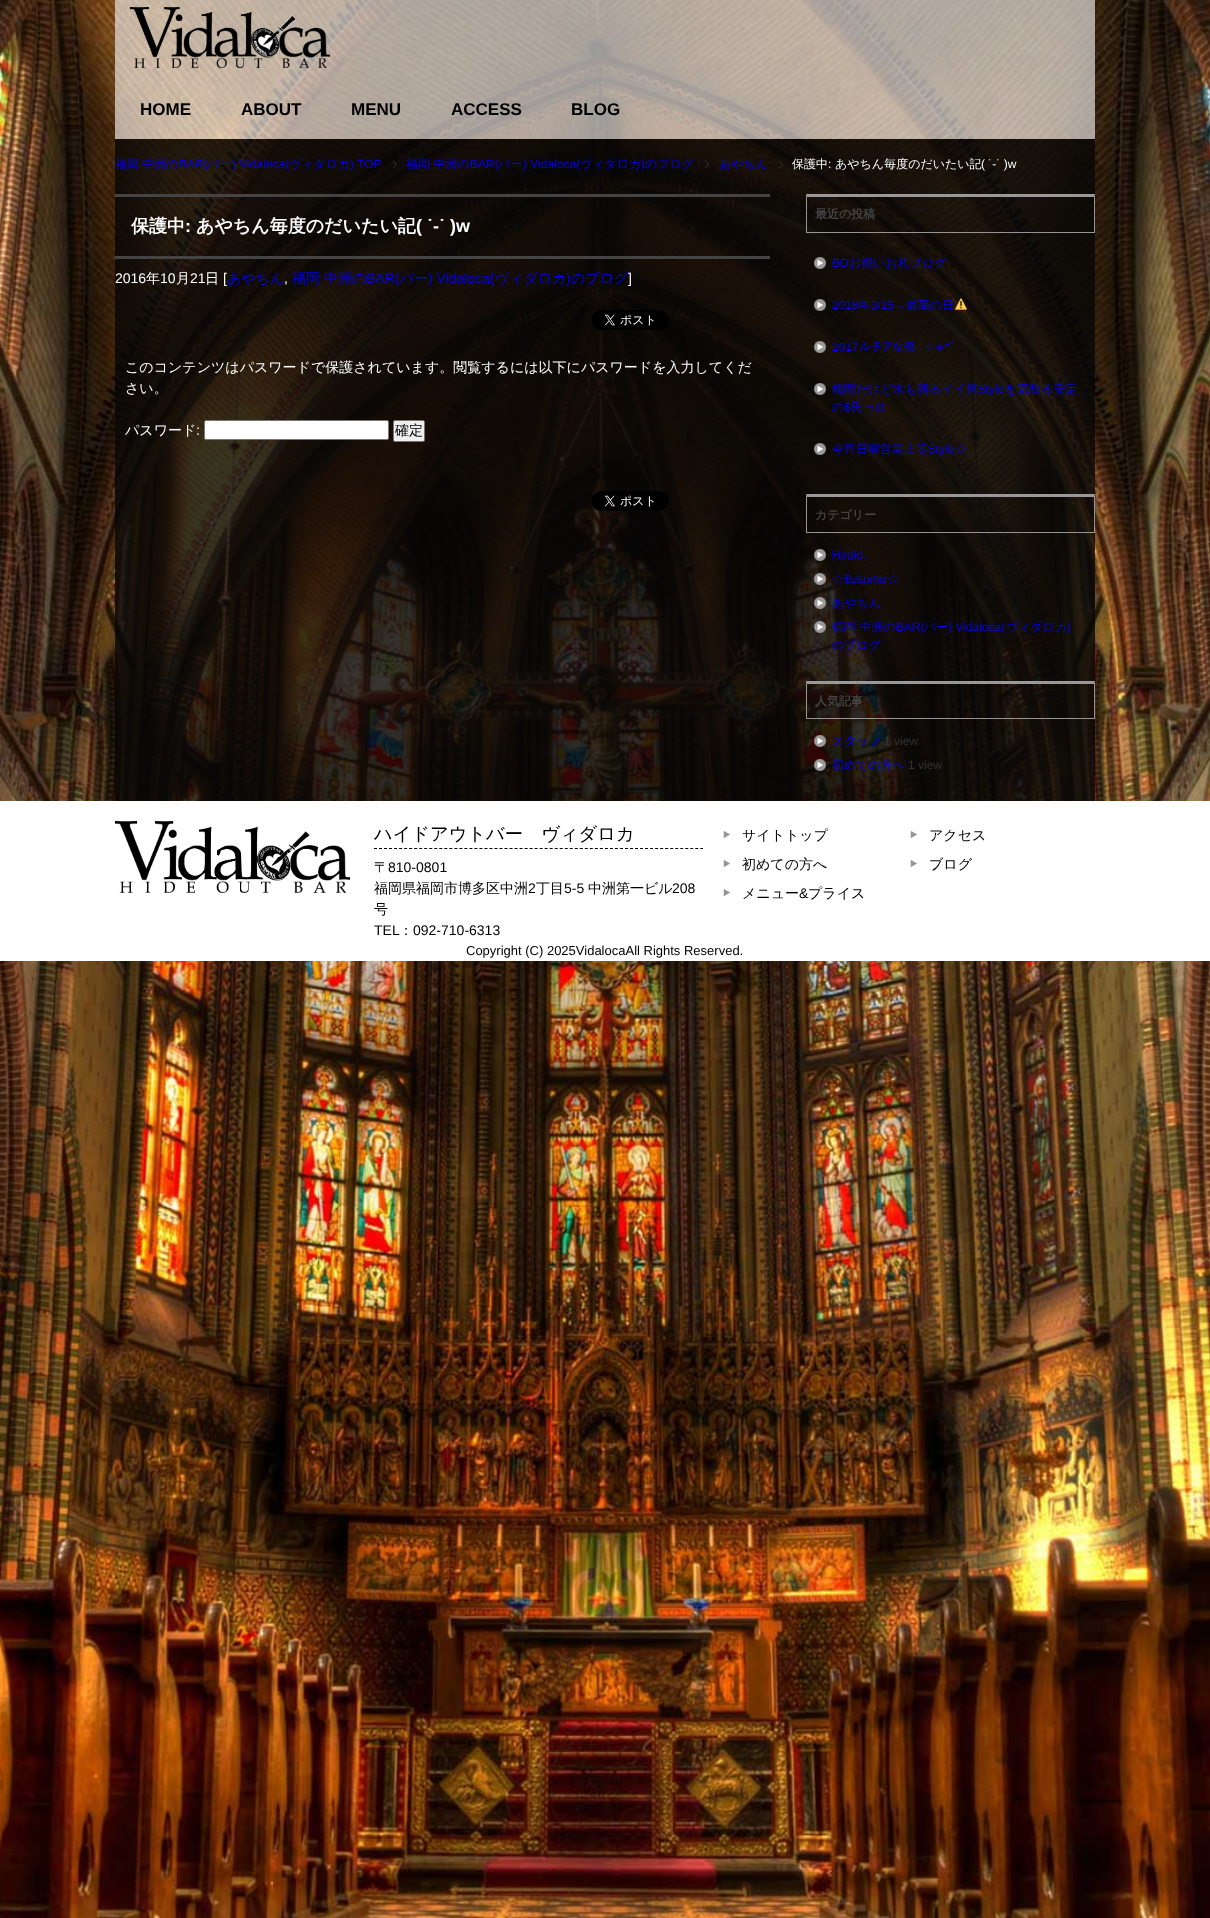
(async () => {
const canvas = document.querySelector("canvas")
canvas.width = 1210
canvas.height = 1918
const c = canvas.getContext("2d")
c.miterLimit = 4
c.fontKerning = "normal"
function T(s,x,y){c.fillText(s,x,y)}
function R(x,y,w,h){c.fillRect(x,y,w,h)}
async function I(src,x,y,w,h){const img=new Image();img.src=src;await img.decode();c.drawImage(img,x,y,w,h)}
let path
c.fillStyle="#fff"
R(0,0,1210,1918)
await I("1.png",0,0,1210,1918)
c.fillStyle="#ffffff99"
R(115,0,980,139)
await I("2.png",130,7,200,62)
c.font="bold 17px Liberation Sans"
c.fillStyle="#000"
T("HOME",140,115)
T("ABOUT",241,115)
T("MENU",351,115)
T("ACCESS",451,115)
T("BLOG",571,115)
c.fillStyle="#060606cc"
R(115,139,980,662)
c.font="500 12px WenQuanYi Zen Hei"
c.fillStyle="#00e"
T("福岡 中洲の",115,168)
c.font="12px Liberation Sans"
T("BAR(",179,168)
c.font="500 12px WenQuanYi Zen Hei"
T("バー",207,168)
c.font="12px Liberation Sans"
T(") Vidaloca(",232,168)
c.font="500 12px WenQuanYi Zen Hei"
T("ヴィダロカ",289,168)
c.font="12px Liberation Sans"
T(") TOP",350,168)
await I("3.png",393,161,4,7)
c.font="500 12px WenQuanYi Zen Hei"
T("福岡 中洲の",406,168)
c.font="12px Liberation Sans"
T("BAR(",470,168)
c.font="500 12px WenQuanYi Zen Hei"
T("バー",498,168)
c.font="12px Liberation Sans"
T(") Vidaloca(",523,168)
c.font="500 12px WenQuanYi Zen Hei"
T("ヴィダロカ",580,168)
c.font="12px Liberation Sans"
T(")",641,168)
c.font="500 12px WenQuanYi Zen Hei"
T("のブログ",645,168)
await I("4.png",705,161,4,7)
T("あやちん",719,168)
await I("5.png",779,161,4,7)
c.fillStyle="#fff"
T("保護中",792,168)
c.font="12px Liberation Sans"
T(":",828,168)
c.font="500 12px WenQuanYi Zen Hei"
T("あやちん毎度のだいたい記",835,168)
c.font="12px Liberation Sans"
T("( ˙-˙ )w",981,168)
c.fillStyle="#444"
R(115,194,655,3)
R(115,256,655,3)
c.font="bold 18px WenQuanYi Zen Hei"
c.fillStyle="#fff"
T("保護中",131,232)
c.font="bold 18px Liberation Sans"
T(":",185,232)
c.font="bold 18px WenQuanYi Zen Hei"
T("あやちん毎度のだいたい記",196,232)
c.font="bold 18px Liberation Sans"
T("( ˙-˙ )w",416,232)
c.font="14px Liberation Sans"
T("2016",115,283)
c.font="500 14px WenQuanYi Zen Hei"
T("年",146,283)
c.font="14px Liberation Sans"
T("10",160,283)
c.font="500 14px WenQuanYi Zen Hei"
T("月",176,283)
c.font="14px Liberation Sans"
T("21",190,283)
c.font="500 14px WenQuanYi Zen Hei"
T("日",205,283)
c.font="14px Liberation Sans"
T("[",223,283)
c.font="500 14px WenQuanYi Zen Hei"
c.fillStyle="#00e"
T("あやちん",227,283)
c.font="14px Liberation Sans"
c.fillStyle="#fff"
T(",",284,283)
c.font="500 14px WenQuanYi Zen Hei"
c.fillStyle="#00e"
T("福岡",292,283)
T("中洲の",324,283)
c.font="14px Liberation Sans"
T("BAR(",366,283)
c.font="500 14px WenQuanYi Zen Hei"
T("バー",400,283)
c.font="14px Liberation Sans"
T(") Vidaloca(",428,283)
c.font="500 14px WenQuanYi Zen Hei"
T("ヴィダロカ",495,283)
c.font="14px Liberation Sans"
T(")",566,283)
c.font="500 14px WenQuanYi Zen Hei"
T("のブログ",571,283)
c.font="14px Liberation Sans"
c.fillStyle="#fff"
T("]",628,283)
await I("6.png",591,310,78,20)
c.font="500 14px WenQuanYi Zen Hei"
T("このコンテンツはパスワードで保護されています。閲覧するには以下にパスワードを入力してくだ",125,372)
T("さい。",125,393)
T("パスワード",125,435)
c.font="14px Liberation Sans"
T(":",196,435)
c.beginPath()
c.roundRect(204.5,420.5,184,19,1.5)
c.fill()
c.strokeStyle="#767676"
c.stroke()
c.fillStyle="#efefef"
c.beginPath()
c.roundRect(393.5,420.5,31,21,1.5)
c.fill()
c.stroke()
c.font="500 14px WenQuanYi Zen Hei"
c.fillStyle="#000"
T("確定",395,435)
await I("7.png",591,491,78,20)
c.fillStyle="#999"
path = new Path2D("M806 194h289l-1 3h-287z")
c.fill(path)
c.fillStyle="#959595"
path = new Path2D("M1095 194v39l-1-1v-35z")
c.fill(path)
R(806,232,289,1)
path = new Path2D("M806 233v-39l1 3v35z")
c.fill(path)
c.font="bold 12px WenQuanYi Zen Hei"
c.fillStyle="#454545"
T("最近の投稿",815,218)
await I("8.png",814,257,12,12)
c.font="12px Liberation Sans"
c.fillStyle="#00e"
T("BD",832,267)
c.font="500 12px WenQuanYi Zen Hei"
T("お祝いお礼ブログ",849,267)
await I("9.png",814,299,12,12)
c.font="12px Liberation Sans"
T("2018",832,309)
c.font="500 12px WenQuanYi Zen Hei"
T("年",859,309)
c.font="12px Liberation Sans"
T("3/15→",871,309)
c.font="500 12px WenQuanYi Zen Hei"
T("最高の日",906,309)
await I("10.png",955,298,12,12)
await I("11.png",814,341,12,12)
c.font="12px Liberation Sans"
T("2017",832,351)
c.font="12px IPAPGothic"
T("ルチアな俺",859,351)
c.font="12px DejaVu Sans"
T("☆∗︎",924,351)
c.font="12px Liberation Sans"
T("*",945,351)
c.font="12px IPAPGothic"
T("ﾟ",950,351)
await I("12.png",814,383,12,12)
c.font="500 12px WenQuanYi Zen Hei"
T("梅雨だけど水も滴るイイ男",832,393)
c.font="12px Liberation Sans"
T("Style",978,393)
c.font="500 12px WenQuanYi Zen Hei"
T("を気取る安定",1005,393)
T("の",832,411)
c.font="12px Liberation Sans"
T("$",844,411)
c.font="500 12px WenQuanYi Zen Hei"
T("氏っ",851,411)
c.font="12px Liberation Sans"
T("!!!",875,411)
await I("13.png",814,443,12,12)
c.font="500 12px WenQuanYi Zen Hei"
T("今宵日曜営業上等",832,453)
c.font="12px Liberation Sans"
T("Style",928,453)
c.font="500 12px WenQuanYi Zen Hei"
T("☆",955,453)
c.fillStyle="#999"
path = new Path2D("M806 494h289l-1 3h-287z")
c.fill(path)
c.fillStyle="#959595"
path = new Path2D("M1095 494v39l-1-1v-35z")
c.fill(path)
R(806,532,289,1)
path = new Path2D("M806 533v-39l1 3v35z")
c.fill(path)
c.font="bold 12px WenQuanYi Zen Hei"
c.fillStyle="#454545"
T("カテゴリー",815,519)
await I("14.png",814,549,12,12)
c.font="12px Liberation Sans"
c.fillStyle="#00e"
T("Hirok!",832,559)
c.font="500 12px WenQuanYi Zen Hei"
T("。",863,559)
await I("15.png",814,573,12,12)
T("☆",832,583)
c.font="12px Liberation Sans"
T("$usumu",844,583)
c.font="500 12px WenQuanYi Zen Hei"
T("☆",887,583)
await I("16.png",814,597,12,12)
T("あやちん",832,607)
await I("17.png",814,621,12,12)
T("福岡 中洲の",832,631)
c.font="12px Liberation Sans"
T("BAR(",896,631)
c.font="500 12px WenQuanYi Zen Hei"
T("バー",924,631)
c.font="12px Liberation Sans"
T(") Vidaloca(",948,631)
c.font="500 12px WenQuanYi Zen Hei"
T("ヴィダロカ",1006,631)
c.font="12px Liberation Sans"
T(")",1067,631)
c.font="500 12px WenQuanYi Zen Hei"
T("のブログ",832,649)
c.fillStyle="#999"
path = new Path2D("M806 681h289l-1 3h-287z")
c.fill(path)
c.fillStyle="#959595"
path = new Path2D("M1095 681v38l-1-1v-34z")
c.fill(path)
R(806,718,289,1)
path = new Path2D("M806 719v-38l1 3v34z")
c.fill(path)
c.font="bold 12px WenQuanYi Zen Hei"
c.fillStyle="#454545"
T("人気記事",815,705)
await I("18.png",814,735,12,12)
c.font="500 12px WenQuanYi Zen Hei"
c.fillStyle="#00e"
T("スタッフ",832,745)
c.font="12px Liberation Sans"
c.fillStyle="#333"
T("1 view",884,745)
await I("19.png",814,759,12,12)
c.font="500 12px WenQuanYi Zen Hei"
c.fillStyle="#00e"
T("初めての方へ",832,769)
c.font="12px Liberation Sans"
c.fillStyle="#333"
T("1 view",908,769)
c.fillStyle="#fff"
R(0,801,1210,160)
await I("20.png",115,821,235,72)
path = new Path2D("M374 848.5h329")
c.strokeStyle="#000"
c.setLineDash([3,2.02])
c.stroke(path)
c.font="500 18.25px WenQuanYi Zen Hei"
c.fillStyle="#000"
T("ハイドアウトバー　ヴィダロカ",374,840)
c.font="500 14px WenQuanYi Zen Hei"
T("〒",374,872)
c.font="14px Liberation Sans"
T("810-0801",388,872)
c.font="500 14px WenQuanYi Zen Hei"
T("福岡県福岡市博多区中洲",374,893)
c.font="14px Liberation Sans"
T("2",528,893)
c.font="500 14px WenQuanYi Zen Hei"
T("丁目",536,893)
c.font="14px Liberation Sans"
T("5-5",564,893)
c.font="500 14px WenQuanYi Zen Hei"
T("中洲第一ビル",588,893)
c.font="14px Liberation Sans"
T("208",672,893)
c.font="500 14px WenQuanYi Zen Hei"
T("号",374,914)
c.font="14px Liberation Sans"
T("TEL",374,935)
c.font="500 14px WenQuanYi Zen Hei"
T("：",399,935)
c.font="14px Liberation Sans"
T("092-710-6313",413,935)
await I("21.png",723,831,7,8)
c.font="500 14px WenQuanYi Zen Hei"
T("サイトトップ",742,840)
await I("21.png",723,860,7,8)
T("初めての方へ",742,869)
await I("21.png",723,889,7,8)
T("メニュー",742,898)
c.font="14px Liberation Sans"
T("&",799,898)
c.font="500 14px WenQuanYi Zen Hei"
T("プライス",808,898)
await I("21.png",910,831,7,8)
T("アクセス",929,840)
await I("21.png",910,860,7,8)
T("ブログ",929,869)
c.font="13px Liberation Sans"
T("Copyright (C) 2025VidalocaAll Rights Reserved.",466,955)
})()
